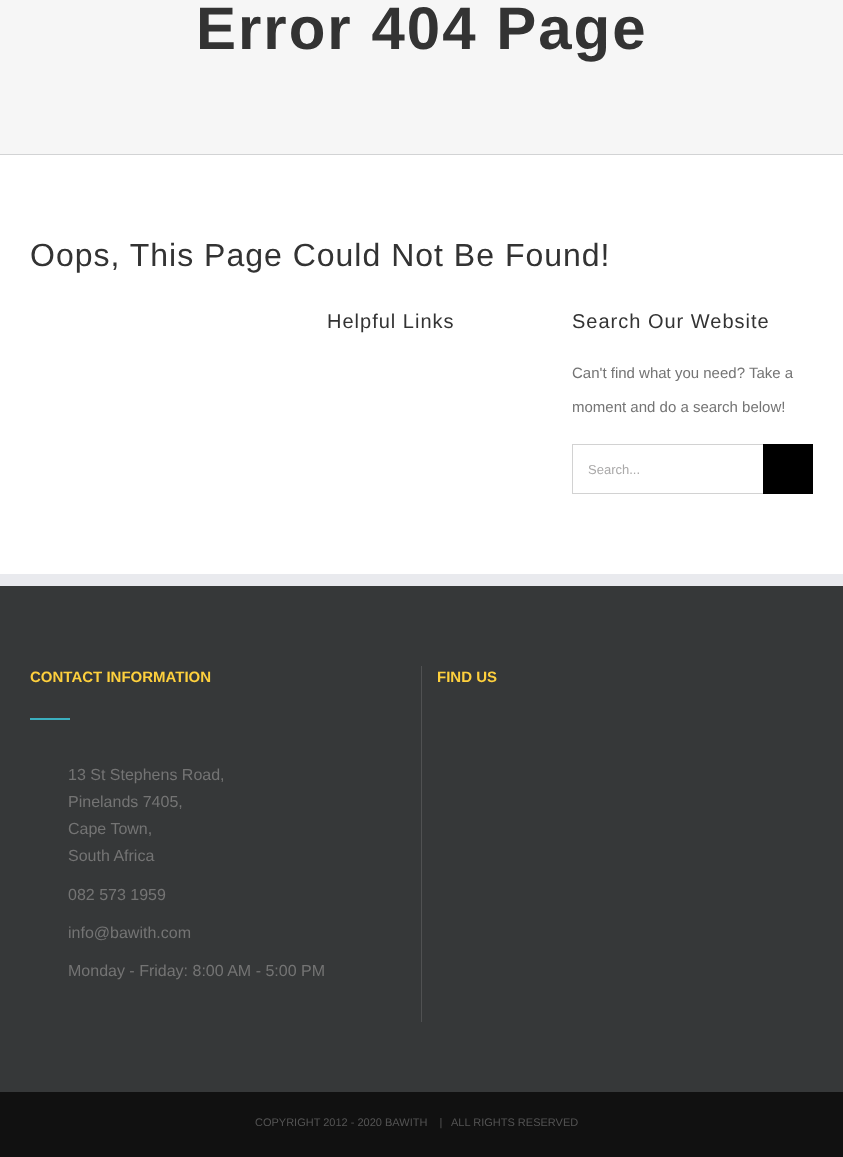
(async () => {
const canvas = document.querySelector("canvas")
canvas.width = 843
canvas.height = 1157
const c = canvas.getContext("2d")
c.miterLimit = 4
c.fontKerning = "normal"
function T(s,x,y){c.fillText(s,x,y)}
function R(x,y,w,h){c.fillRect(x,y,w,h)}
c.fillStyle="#fff"
R(0,0,843,1157)
c.fillStyle="#f6f6f6"
R(0,0,843,154)
c.fillStyle="#d2d3d4"
R(0,154,843,1)
c.letterSpacing="2px"
c.font="bold 60px Liberation Sans"
c.fillStyle="#333"
T("Error 404 Page",196,49)
c.letterSpacing="1px"
c.font="32px Liberation Sans"
T("Oops, This Page Could Not Be Found!",30,266)
c.font="20px Liberation Sans"
T("Helpful Links",327,328)
T("Search Our Website",572,328)
c.letterSpacing="0px"
c.font="15px Liberation Sans"
c.fillStyle="#747474"
T("Can't find what you need? Take a",572,378)
T("moment and do a search below!",572,412)
c.fillStyle="#d2d2d2"
R(572,444,191,1)
R(572,493,191,1)
R(572,444,1,50)
c.font="13px Liberation Sans"
c.fillStyle="#aaa9a9"
T("Search...",588,474)
c.fillStyle="#000"
R(763,444,50,50)
c.fillStyle="#363839"
R(0,586,843,506)
c.fillStyle="#e9eaee"
R(0,574,843,12)
c.fillStyle="#505152"
R(421,666,1,356)
c.font="bold 15px Liberation Sans"
c.fillStyle="#fed03d"
T("CONTACT INFORMATION",30,682)
c.fillStyle="#3bafbf"
R(30,718,40,2)
c.font="16px Liberation Sans"
c.fillStyle="#747474"
T("13 St Stephens Road,",68,780)
T("Pinelands 7405,",68,807)
T("Cape Town,",68,834)
T("South Africa",68,861)
T("082 573 1959",68,900)
T("info@bawith.com",68,938)
T("Monday - Friday: 8:00 AM - 5:00 PM",68,976)
c.font="bold 15px Liberation Sans"
c.fillStyle="#fed03d"
T("FIND US",437,682)
c.fillStyle="#111"
R(0,1092,843,65)
c.font="11px Liberation Sans"
c.fillStyle="#545454"
T("COPYRIGHT 2012 - 2020 BAWITH    |   ALL RIGHTS RESERVED",255,1126)
})()
